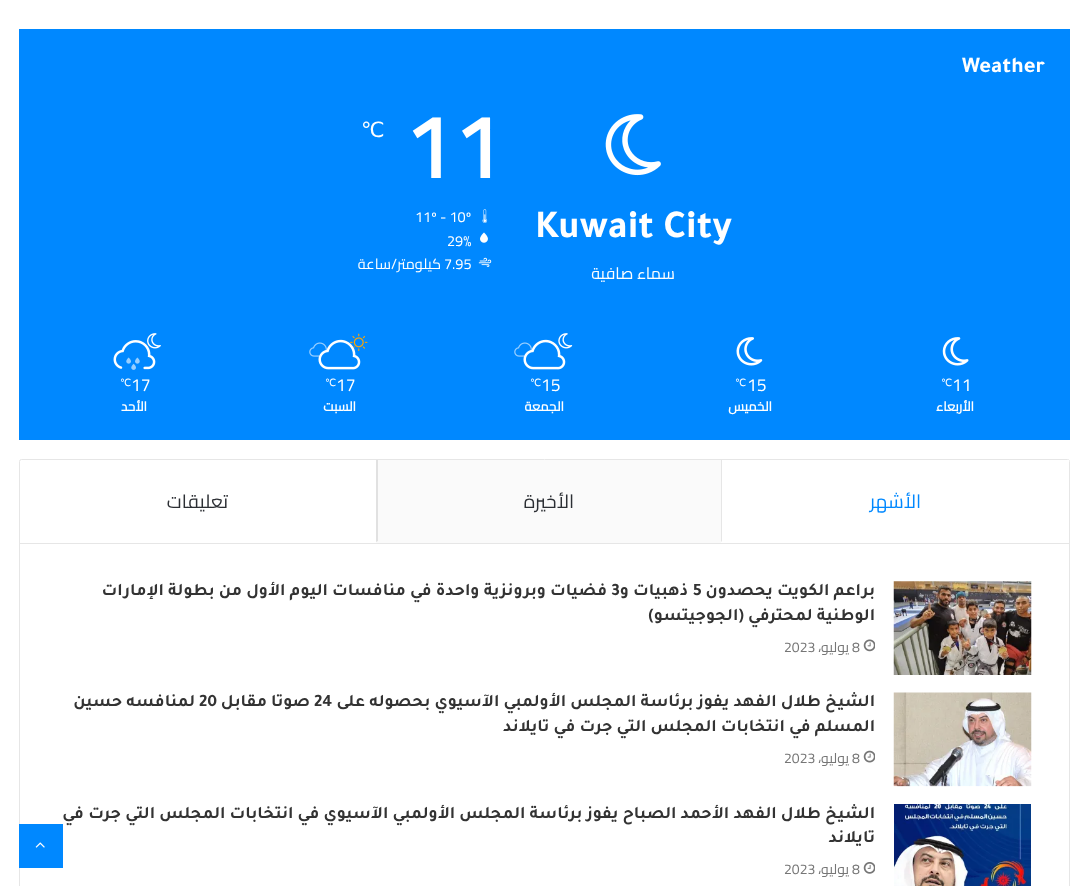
(async () => {
const canvas = document.querySelector("canvas")
canvas.width = 1088
canvas.height = 886
const c = canvas.getContext("2d")
c.miterLimit = 4
c.fontKerning = "normal"
function T(s,x,y){c.fillText(s,x,y)}
function R(x,y,w,h){c.fillRect(x,y,w,h)}
async function I(src,x,y,w,h){const img=new Image();img.src=src;await img.decode();c.drawImage(img,x,y,w,h)}
let path
c.fillStyle="#fff"
R(0,0,1088,886)
c.fillStyle="#08f"
R(19,29,1051,411)
c.font="bold 22.5px Tajawal"
c.fillStyle="#fff"
T("Weather",962,72)
await I("1.png",605,114,56,62)
c.font="bold 40px Tajawal"
T("Kuwait City",535,237)
c.direction="rtl"
c.font="16.25px Cairo"
T("سماء صافية",675,279)
c.direction="ltr"
c.font="bold 88px Cairo"
T("11",404,178)
c.font="21px DejaVu Sans"
T("℃",361,137)
await I("2.png",482,209,6,14)
c.font="14.5px Cairo"
T("11º - 10º",415,222)
await I("3.png",480,232,8,11)
T("29%",447,246)
await I("4.png",478,257,14,10)
T("7.95",444,269)
c.direction="rtl"
T("كيلومتر/ساعة",441,269)
await I("5.png",942,337,27,29)
c.direction="ltr"
c.font="17.5px Cairo"
T("11",952,391)
c.font="10px DejaVu Sans"
T("℃",941,386)
c.direction="rtl"
c.font="bold 13px Cairo"
T("الأربعاء",974,411)
await I("6.png",736,337,27,29)
c.direction="ltr"
c.font="17.5px Cairo"
T("15",747,391)
c.font="10px DejaVu Sans"
T("℃",735,386)
c.direction="rtl"
c.font="bold 13px Cairo"
T("الخميس",772,411)
await I("7.png",558,333,15,16)
await I("9.png",514,342,18,15)
await I("10.png",523,349,12,8)
await I("8.png",523,339,43,31)
c.direction="ltr"
c.font="17.5px Cairo"
T("15",541,391)
c.font="10px DejaVu Sans"
T("℃",530,386)
c.direction="rtl"
c.font="bold 13px Cairo"
T("الجمعة",564,411)
await I("11.png",350,333,18,18)
await I("9.png",309,342,18,15)
await I("13.png",318,347,36,10)
await I("12.png",318,339,43,31)
c.direction="ltr"
c.font="17.5px Cairo"
T("17",336,391)
c.font="10px DejaVu Sans"
T("℃",325,386)
c.direction="rtl"
c.font="bold 13px Cairo"
T("السبت",356,411)
await I("14.png",147,333,14,16)
await I("15.png",113,340,43,30)
await I("16.png",135,357,5,7)
await I("17.png",126,357,5,7)
await I("18.png",131,363,5,7)
c.direction="ltr"
c.font="17.5px Cairo"
T("17",131,391)
c.font="10px DejaVu Sans"
T("℃",120,386)
c.direction="rtl"
c.font="bold 13px Cairo"
T("الأحد",147,411)
c.beginPath()
c.roundRect(19.5,459.5,1050,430,2)
c.strokeStyle="#e6e6e6"
c.stroke()
c.fillStyle="#e6e6e6"
R(20,543,1049,1)
c.fillStyle="#fff"
R(1068,460,1,1)
c.fillStyle="#e6e6e6"
path = new Path2D("M721 542v-82h1v81z")
c.fill(path)
c.font="19px Cairo"
c.fillStyle="#08f"
T("الأشهر",921,508)
c.fillStyle="#fafafa"
R(376,460,345,83)
c.fillStyle="#e1e1e1"
path = new Path2D("M376 542v-82h2v81z")
c.fill(path)
c.fillStyle="#2c2f34"
T("الأخيرة",574,508)
T("تعليقات",228,508)
await I("19.png",893,581,139,94)
c.font="bold 17.5px Tajawal"
c.fillStyle="#333"
T("براعم الكويت يحصدون",875,595)
c.direction="ltr"
T("5",693,595)
c.direction="rtl"
T("ذهبيات و",688,595)
c.direction="ltr"
T("3",611,595)
c.direction="rtl"
T("فضيات وبرونزية واحدة في منافسات اليوم الأول من بطولة الإمارات",607,595)
T("الوطنية لمحترفي (الجوجيتسو)",875,620)
await I("20.png",863,639,12,13)
c.direction="ltr"
c.font="14px Cairo"
c.fillStyle="#767676"
T("8",852,652)
c.direction="rtl"
T("يوليو،",849,652)
c.direction="ltr"
T("2023",784,652)
await I("21.png",893,692,139,95)
c.direction="rtl"
c.font="bold 17.5px Tajawal"
c.fillStyle="#333"
T("الشيخ طلال الفهد يفوز برئاسة المجلس الأولمبي الآسيوي بحصوله على",875,706)
c.direction="ltr"
T("24",314,706)
c.direction="rtl"
T("صوتا مقابل",310,706)
c.direction="ltr"
T("20",199,706)
c.direction="rtl"
T("لمنافسه حسين",195,706)
T("المسلم في انتخابات المجلس التي جرت في تايلاند",875,731)
await I("22.png",863,750,12,13)
c.direction="ltr"
c.font="14px Cairo"
c.fillStyle="#767676"
T("8",852,763)
c.direction="rtl"
T("يوليو،",849,763)
c.direction="ltr"
T("2023",784,763)
await I("23.png",894,804,137,82)
c.direction="rtl"
c.font="bold 17.5px Tajawal"
c.fillStyle="#333"
T("الشيخ طلال الفهد الأحمد الصباح يفوز برئاسة المجلس الأولمبي الآسيوي في انتخابات المجلس التي جرت في",875,818)
T("تايلاند",875,842)
await I("24.png",863,862,12,12)
c.direction="ltr"
c.font="14px Cairo"
c.fillStyle="#767676"
T("8",852,874)
c.direction="rtl"
T("يوليو،",849,874)
c.direction="ltr"
T("2023",784,874)
c.fillStyle="#08f"
R(19,824,44,44)
await I("25.png",35,842,10,6)
})()
